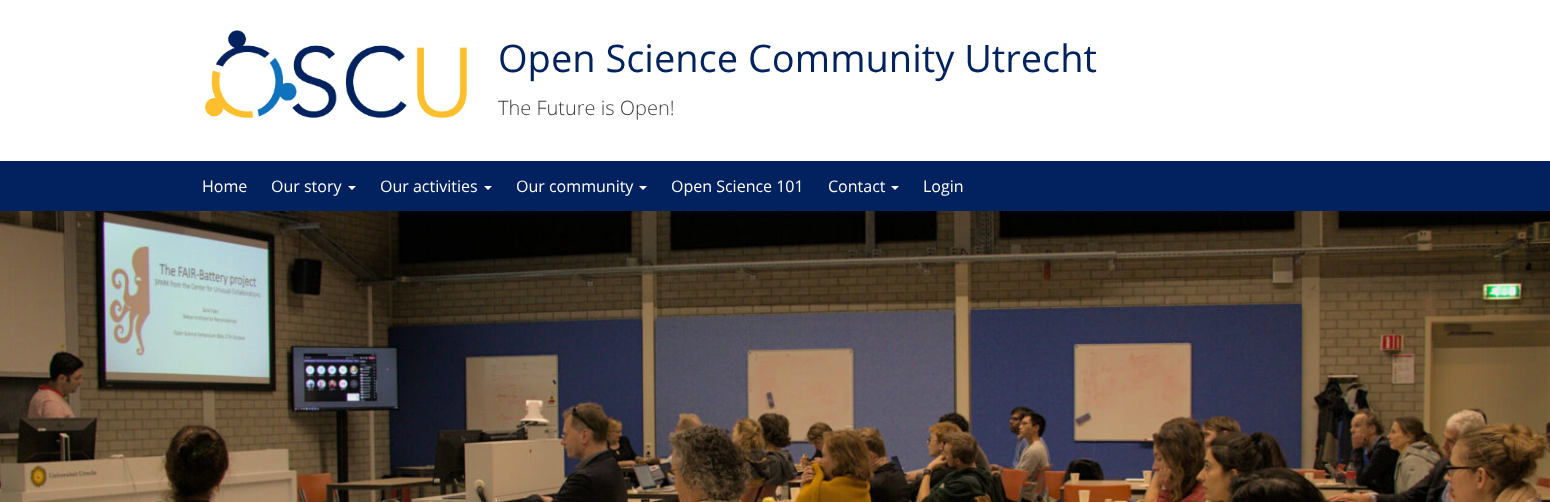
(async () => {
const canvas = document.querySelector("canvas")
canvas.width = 1550
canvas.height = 502
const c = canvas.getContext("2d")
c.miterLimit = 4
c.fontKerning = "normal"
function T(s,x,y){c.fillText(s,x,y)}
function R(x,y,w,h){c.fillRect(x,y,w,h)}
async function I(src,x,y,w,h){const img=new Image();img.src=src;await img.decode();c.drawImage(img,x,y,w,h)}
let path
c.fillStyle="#fff"
R(0,0,1550,502)
await I("1.png",205,30,262,88)
c.font="38px Open Sans"
c.fillStyle="#02225e"
T("Open Science Community Utrecht",498,72)
c.font="300 20px Open Sans"
c.fillStyle="#3b3b3b"
T("The Future is Open!",498,115)
c.fillStyle="#01225e"
R(0,161,1550,50)
c.font="16px Open Sans"
c.fillStyle="#fff"
T("Home",202,192)
T("Our story",271,192)
path = new Path2D("M348 186h8l-4 4z")
c.fill(path)
T("Our activities",380,192)
path = new Path2D("M484 186h8l-4 4z")
c.fill(path)
T("Our community",516,192)
path = new Path2D("M639 186h8l-4 4z")
c.fill(path)
T("Open Science 101",671,192)
T("Contact",828,192)
path = new Path2D("M891 186h8l-4 4z")
c.fill(path)
T("Login",923,192)
await I("2.png",0,211,1550,291)
})()
